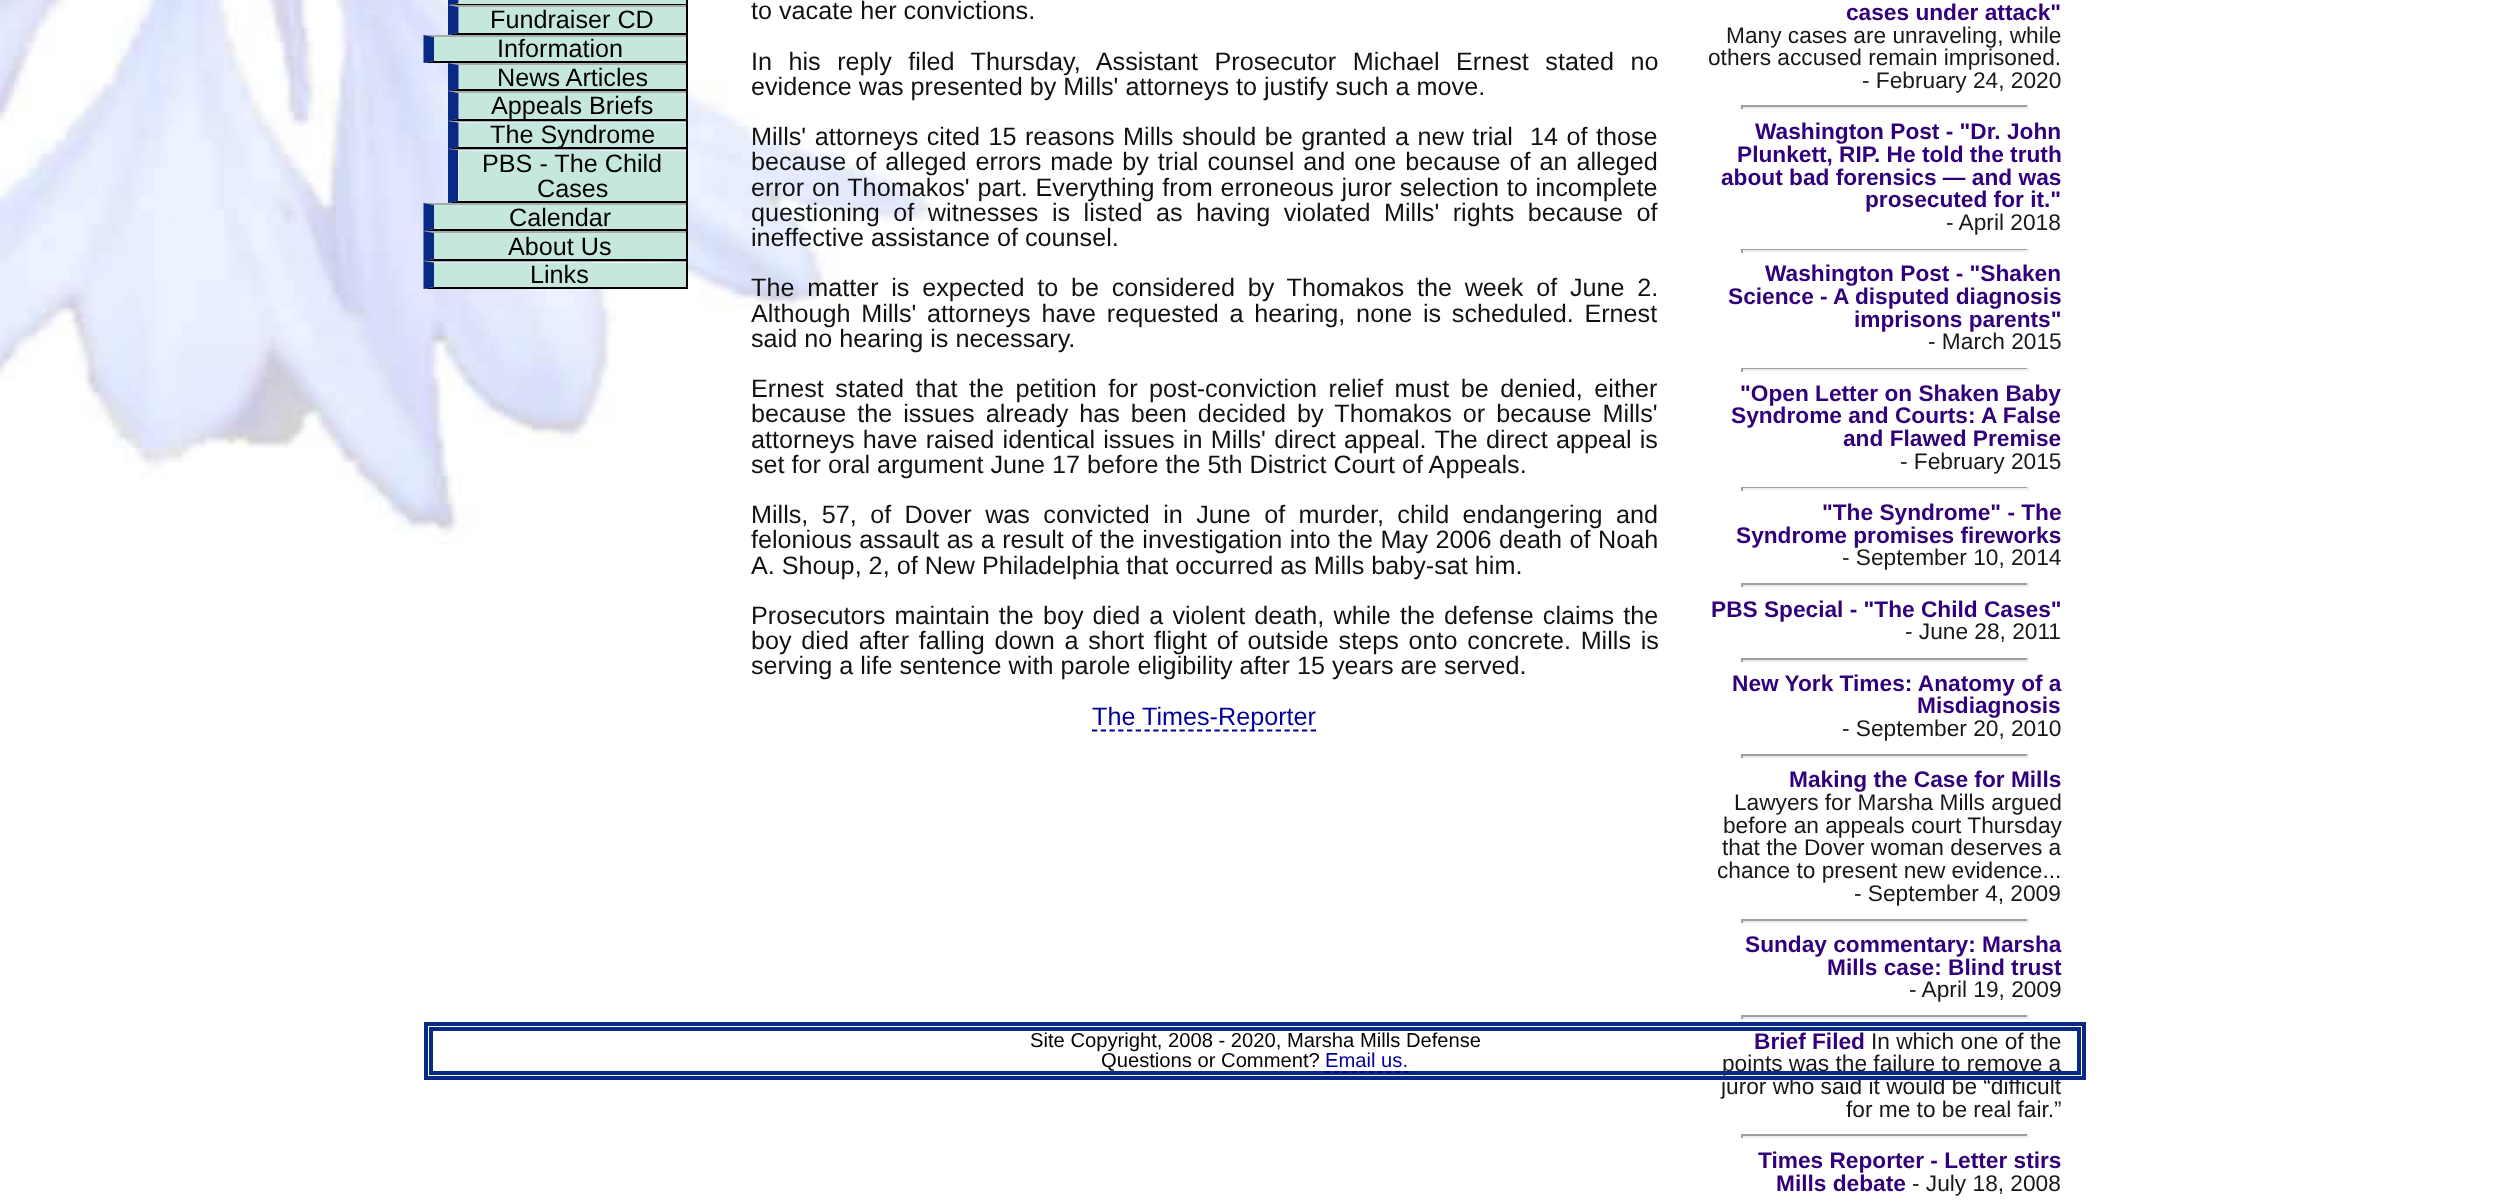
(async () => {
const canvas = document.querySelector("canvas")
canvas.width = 2509
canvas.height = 1204
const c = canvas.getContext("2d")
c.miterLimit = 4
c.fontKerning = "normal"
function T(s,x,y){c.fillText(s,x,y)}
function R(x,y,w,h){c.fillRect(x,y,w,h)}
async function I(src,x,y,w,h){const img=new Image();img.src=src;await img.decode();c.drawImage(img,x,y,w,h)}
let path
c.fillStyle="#fff"
R(0,0,2509,1204)
await I("1.png",0,0,934,544)
c.fillStyle="#c6e7de"
R(459,0,227,4)
c.fillStyle="#000"
R(686,0,2,5)
path = new Path2D("M688 5h-240l10-1h228z")
c.fill(path)
c.fillStyle="#082984"
path = new Path2D("M448 5v-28l10.5 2v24.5z")
c.fill(path)
c.fillStyle="#c6e7de"
R(459,7,227,26)
c.fillStyle="#aaa"
path = new Path2D("M448 5h240l-2 2h-228z")
c.fill(path)
c.fillStyle="#000"
R(686,5,2,30)
path = new Path2D("M688 35h-240l10-2h228z")
c.fill(path)
c.fillStyle="#082984"
path = new Path2D("M448 35v-30l10.5 2v26z")
c.fill(path)
c.font="25.2px Liberation Sans"
c.fillStyle="#000"
T("Fundraiser CD",490,28)
c.fillStyle="#c6e7de"
R(434,37,252,24)
c.fillStyle="#aaa"
path = new Path2D("M424 35h264l-2 2h-252z")
c.fill(path)
c.fillStyle="#000"
R(686,35,2,28)
path = new Path2D("M688 63h-264l10-2h252z")
c.fill(path)
c.fillStyle="#082984"
path = new Path2D("M423.5 63v-28l10.5 2v24z")
c.fill(path)
c.fillStyle="#000"
T("Information",497,57)
c.fillStyle="#c6e7de"
R(459,65,227,24)
c.fillStyle="#aaa"
path = new Path2D("M448 63h240l-2 2h-228z")
c.fill(path)
c.fillStyle="#000"
R(686,63,2,28)
path = new Path2D("M688 91h-240l10-2h228z")
c.fill(path)
c.fillStyle="#082984"
path = new Path2D("M448 91v-28l10.5 2v24z")
c.fill(path)
c.fillStyle="#000"
T("News Articles",497,86)
c.fillStyle="#c6e7de"
R(459,93,227,26)
c.fillStyle="#aaa"
path = new Path2D("M448 91h240l-2 2h-228z")
c.fill(path)
c.fillStyle="#000"
R(686,91,2,30)
path = new Path2D("M688 121h-240l10-2h228z")
c.fill(path)
c.fillStyle="#082984"
path = new Path2D("M448 121v-30l10.5 2v26z")
c.fill(path)
c.fillStyle="#000"
T("Appeals Briefs",491,114)
c.fillStyle="#c6e7de"
R(459,123,227,24)
c.fillStyle="#aaa"
path = new Path2D("M448 121h240l-2 1h-228z")
c.fill(path)
c.fillStyle="#000"
R(686,121,2,28)
path = new Path2D("M688 149h-240l10-2h228z")
c.fill(path)
c.fillStyle="#082984"
path = new Path2D("M448 149v-28l10.5 1.5v24.5z")
c.fill(path)
c.fillStyle="#000"
T("The Syndrome",490,143)
c.fillStyle="#c6e7de"
R(459,151,227,50)
c.fillStyle="#aaa"
path = new Path2D("M448 149h240l-2 1h-228z")
c.fill(path)
c.fillStyle="#000"
R(686,149,2,54)
path = new Path2D("M688 203h-240l10-2h228z")
c.fill(path)
c.fillStyle="#082984"
path = new Path2D("M448 203v-54l10 1v51z")
c.fill(path)
c.fillStyle="#000"
T("PBS - The Child",482,172)
T("Cases",537,197)
c.fillStyle="#c6e7de"
R(434,205,252,24)
c.fillStyle="#aaa"
path = new Path2D("M424 203h264l-2 2h-252z")
c.fill(path)
c.fillStyle="#000"
R(686,203,2,28)
path = new Path2D("M688 231h-264l10-2h252z")
c.fill(path)
c.fillStyle="#082984"
path = new Path2D("M423.5 231v-28l10.5 2v24z")
c.fill(path)
c.fillStyle="#000"
T("Calendar",509,226)
c.fillStyle="#c6e7de"
R(434,233,252,26)
c.fillStyle="#aaa"
path = new Path2D("M424 231h264l-2 2h-252z")
c.fill(path)
c.fillStyle="#000"
R(686,231,2,30)
path = new Path2D("M688 261h-264l10-2h252z")
c.fill(path)
c.fillStyle="#082984"
path = new Path2D("M423.5 261v-30l10.5 2v26z")
c.fill(path)
c.fillStyle="#000"
T("About Us",508,255)
c.fillStyle="#c6e7de"
R(434,263,252,24)
c.fillStyle="#aaa"
path = new Path2D("M424 261h264l-2 1h-252z")
c.fill(path)
c.fillStyle="#000"
R(686,261,2,28)
path = new Path2D("M688 289h-264l10-2h252z")
c.fill(path)
c.fillStyle="#082984"
path = new Path2D("M423.5 289v-28l10.5 1.5v24.5z")
c.fill(path)
c.fillStyle="#000"
T("Links",530,283)
c.fillStyle="#111"
T("to vacate her convictions.",751,19)
c.wordSpacing="9.5px"
T("In his reply filed Thursday, Assistant Prosecutor Michael Ernest stated no",751,70)
c.wordSpacing="0px"
T("evidence was presented by Mills' attorneys to justify such a move.",751,95)
c.wordSpacing="1.5px"
T("Mills' attorneys cited 15 reasons Mills should be granted a new trial  14 of those",751,145)
c.wordSpacing="2px"
T("because of alleged errors made by trial counsel and one because of an alleged",751,170)
c.wordSpacing="0.75px"
T("error on Thomakos' part. Everything from erroneous juror selection to incomplete",751,196)
c.wordSpacing="6.5px"
T("questioning of witnesses is listed as having violated Mills' rights because of",751,221)
c.wordSpacing="0px"
T("ineffective assistance of counsel.",751,246)
c.wordSpacing="5.75px"
T("The matter is expected to be considered by Thomakos the week of June 2.",751,296)
c.wordSpacing="3.75px"
T("Although Mills' attorneys have requested a hearing, none is scheduled. Ernest",751,322)
c.wordSpacing="0px"
T("said no hearing is necessary.",751,347)
c.wordSpacing="4.5px"
T("Ernest stated that the petition for post-conviction relief must be denied, either",751,397)
c.wordSpacing="4px"
T("because the issues already has been decided by Thomakos or because Mills'",751,422)
c.wordSpacing="1.25px"
T("attorneys have raised identical issues in Mills' direct appeal. The direct appeal is",751,448)
c.wordSpacing="0px"
T("set for oral argument June 17 before the 5th District Court of Appeals.",751,473)
c.wordSpacing="6.4px"
T("Mills, 57, of Dover was convicted in June of murder, child endangering and",751,523)
c.wordSpacing="0.5px"
T("felonious assault as a result of the investigation into the May 2006 death of Noah",751,548)
c.wordSpacing="0px"
T("A. Shoup, 2, of New Philadelphia that occurred as Mills baby-sat him.",751,574)
c.wordSpacing="2.1px"
T("Prosecutors maintain the boy died a violent death, while the defense claims the",751,624)
c.wordSpacing="2.75px"
T("boy died after falling down a short flight of outside steps onto concrete. Mills is",751,649)
c.wordSpacing="0px"
T("serving a life sentence with parole eligibility after 15 years are served.",751,674)
path = new Path2D("M1092 730.5h224")
c.strokeStyle="#009"
c.lineWidth=1.8
c.setLineDash([5.25,3.5])
c.stroke(path)
c.fillStyle="#009"
T("The Times-Reporter",1092,725)
c.font="bold 22.7px Liberation Sans"
c.fillStyle="#31007b"
T("cases under attack\"",1846,20)
c.font="22.7px Liberation Sans"
c.fillStyle="#181818"
T("Many cases are unraveling, while",1726,43)
T("others accused remain imprisoned.",1708,65)
T("- February 24, 2020",1862,88)
c.fillStyle="#9f9f9f"
R(1741,105,287,2)
c.fillStyle="#eee"
R(2027,105,2,4)
R(1741,107,287,2)
c.fillStyle="#9f9f9f"
R(1741,105,2,4)
c.font="bold 22.7px Liberation Sans"
c.fillStyle="#31007b"
T("Washington Post - \"Dr. John",1755,139)
T("Plunkett, RIP. He told the truth",1737,162)
T("about bad forensics — and was",1721,185)
T("prosecuted for it.\"",1865,207)
c.font="22.7px Liberation Sans"
c.fillStyle="#181818"
T("- April 2018",1946,230)
c.fillStyle="#9f9f9f"
R(1741,249,287,1)
c.fillStyle="#eee"
R(2027,249,2,4)
R(1741,250,287,2)
c.fillStyle="#9f9f9f"
R(1741,249,2,4)
c.font="bold 22.7px Liberation Sans"
c.fillStyle="#31007b"
T("Washington Post - \"Shaken",1765,281)
T("Science - A disputed diagnosis",1728,304)
T("imprisons parents\"",1854,327)
c.font="22.7px Liberation Sans"
c.fillStyle="#181818"
T("- March 2015",1928,349)
c.fillStyle="#9f9f9f"
R(1741,368,287,1)
c.fillStyle="#eee"
R(2027,368,2,4)
R(1741,369,287,2)
c.fillStyle="#9f9f9f"
R(1741,368,2,4)
c.font="bold 22.7px Liberation Sans"
c.fillStyle="#31007b"
T("\"Open Letter on Shaken Baby",1740,401)
T("Syndrome and Courts: A False",1731,423)
T("and Flawed Premise",1843,446)
c.font="22.7px Liberation Sans"
c.fillStyle="#181818"
T("- February 2015",1900,469)
c.fillStyle="#9f9f9f"
R(1741,487,287,1)
c.fillStyle="#eee"
R(2027,487,2,4)
R(1741,488,287,2)
c.fillStyle="#9f9f9f"
R(1741,487,2,4)
c.font="bold 22.7px Liberation Sans"
c.fillStyle="#31007b"
T("\"The Syndrome\" - The",1822,520)
T("Syndrome promises fireworks",1736,543)
c.font="22.7px Liberation Sans"
c.fillStyle="#181818"
T("- September 10, 2014",1842,565)
c.fillStyle="#9f9f9f"
R(1741,583,287,2)
c.fillStyle="#eee"
R(2027,583,2,4)
R(1741,585,287,2)
c.fillStyle="#9f9f9f"
R(1741,583,2,4)
c.font="bold 22.7px Liberation Sans"
c.fillStyle="#31007b"
T("PBS Special - \"The Child Cases\"",1711,617)
c.font="22.7px Liberation Sans"
c.fillStyle="#181818"
T("- June 28, 2011",1905,639)
c.fillStyle="#9f9f9f"
R(1741,658,287,2)
c.fillStyle="#eee"
R(2027,658,2,4)
R(1741,660,287,2)
c.fillStyle="#9f9f9f"
R(1741,658,2,4)
c.font="bold 22.7px Liberation Sans"
c.fillStyle="#31007b"
T("New York Times: Anatomy of a",1732,691)
T("Misdiagnosis",1917,713)
c.font="22.7px Liberation Sans"
c.fillStyle="#181818"
T("- September 20, 2010",1842,736)
c.fillStyle="#9f9f9f"
R(1741,754,287,2)
c.fillStyle="#eee"
R(2027,754,2,4)
R(1741,756,287,2)
c.fillStyle="#9f9f9f"
R(1741,754,2,4)
c.font="bold 22.7px Liberation Sans"
c.fillStyle="#31007b"
T("Making the Case for Mills",1789,787)
c.font="22.7px Liberation Sans"
c.fillStyle="#181818"
T("Lawyers for Marsha Mills argued",1734,810)
T("before an appeals court Thursday",1723,833)
T("that the Dover woman deserves a",1722,855)
T("chance to present new evidence...",1717,878)
T("- September 4, 2009",1854,901)
c.fillStyle="#9f9f9f"
R(1741,919,287,2)
c.fillStyle="#eee"
R(2027,919,2,4)
R(1741,921,287,2)
c.fillStyle="#9f9f9f"
R(1741,919,2,4)
c.font="bold 22.7px Liberation Sans"
c.fillStyle="#31007b"
T("Sunday commentary: Marsha",1745,952)
T("Mills case: Blind trust",1827,975)
c.font="22.7px Liberation Sans"
c.fillStyle="#181818"
T("- April 19, 2009",1909,997)
c.fillStyle="#9f9f9f"
R(1741,1015,287,2)
c.fillStyle="#eee"
R(2027,1015,2,4)
R(1741,1017,287,2)
c.fillStyle="#9f9f9f"
R(1741,1015,2,4)
c.font="bold 22.7px Liberation Sans"
c.fillStyle="#31007b"
T("Brief Filed",1754,1049)
c.font="22.7px Liberation Sans"
c.fillStyle="#181818"
T("In which one of the",1871,1049)
T("points was the failure to remove a",1722,1071)
T("juror who said it would be “difficult",1721,1094)
T("for me to be real fair.”",1846,1117)
c.fillStyle="#9f9f9f"
R(1741,1134,287,2)
c.fillStyle="#eee"
R(2027,1134,2,4)
R(1741,1136,287,2)
c.fillStyle="#9f9f9f"
R(1741,1134,2,4)
c.font="bold 22.7px Liberation Sans"
c.fillStyle="#31007b"
T("Times Reporter - Letter stirs",1758,1168)
T("Mills debate",1776,1191)
c.font="22.7px Liberation Sans"
c.fillStyle="#181818"
T("- July 18, 2008",1912,1191)
c.strokeStyle="#082984"
c.lineWidth=4
c.setLineDash([])
c.strokeRect(426,1024,1658,54)
c.strokeRect(431,1029,1648,44)
c.font="20.2px Liberation Sans"
c.fillStyle="#000"
T("Site Copyright, 2008 - 2020, Marsha Mills Defense",1030,1047)
T("Questions or Comment?",1101,1067)
c.fillStyle="#009"
T("Email us.",1325,1067)
path = new Path2D("M1325 1072h84")
c.strokeStyle="#009"
c.lineWidth=1.8
c.setLineDash([5.25,3.5])
c.stroke(path)
})()
